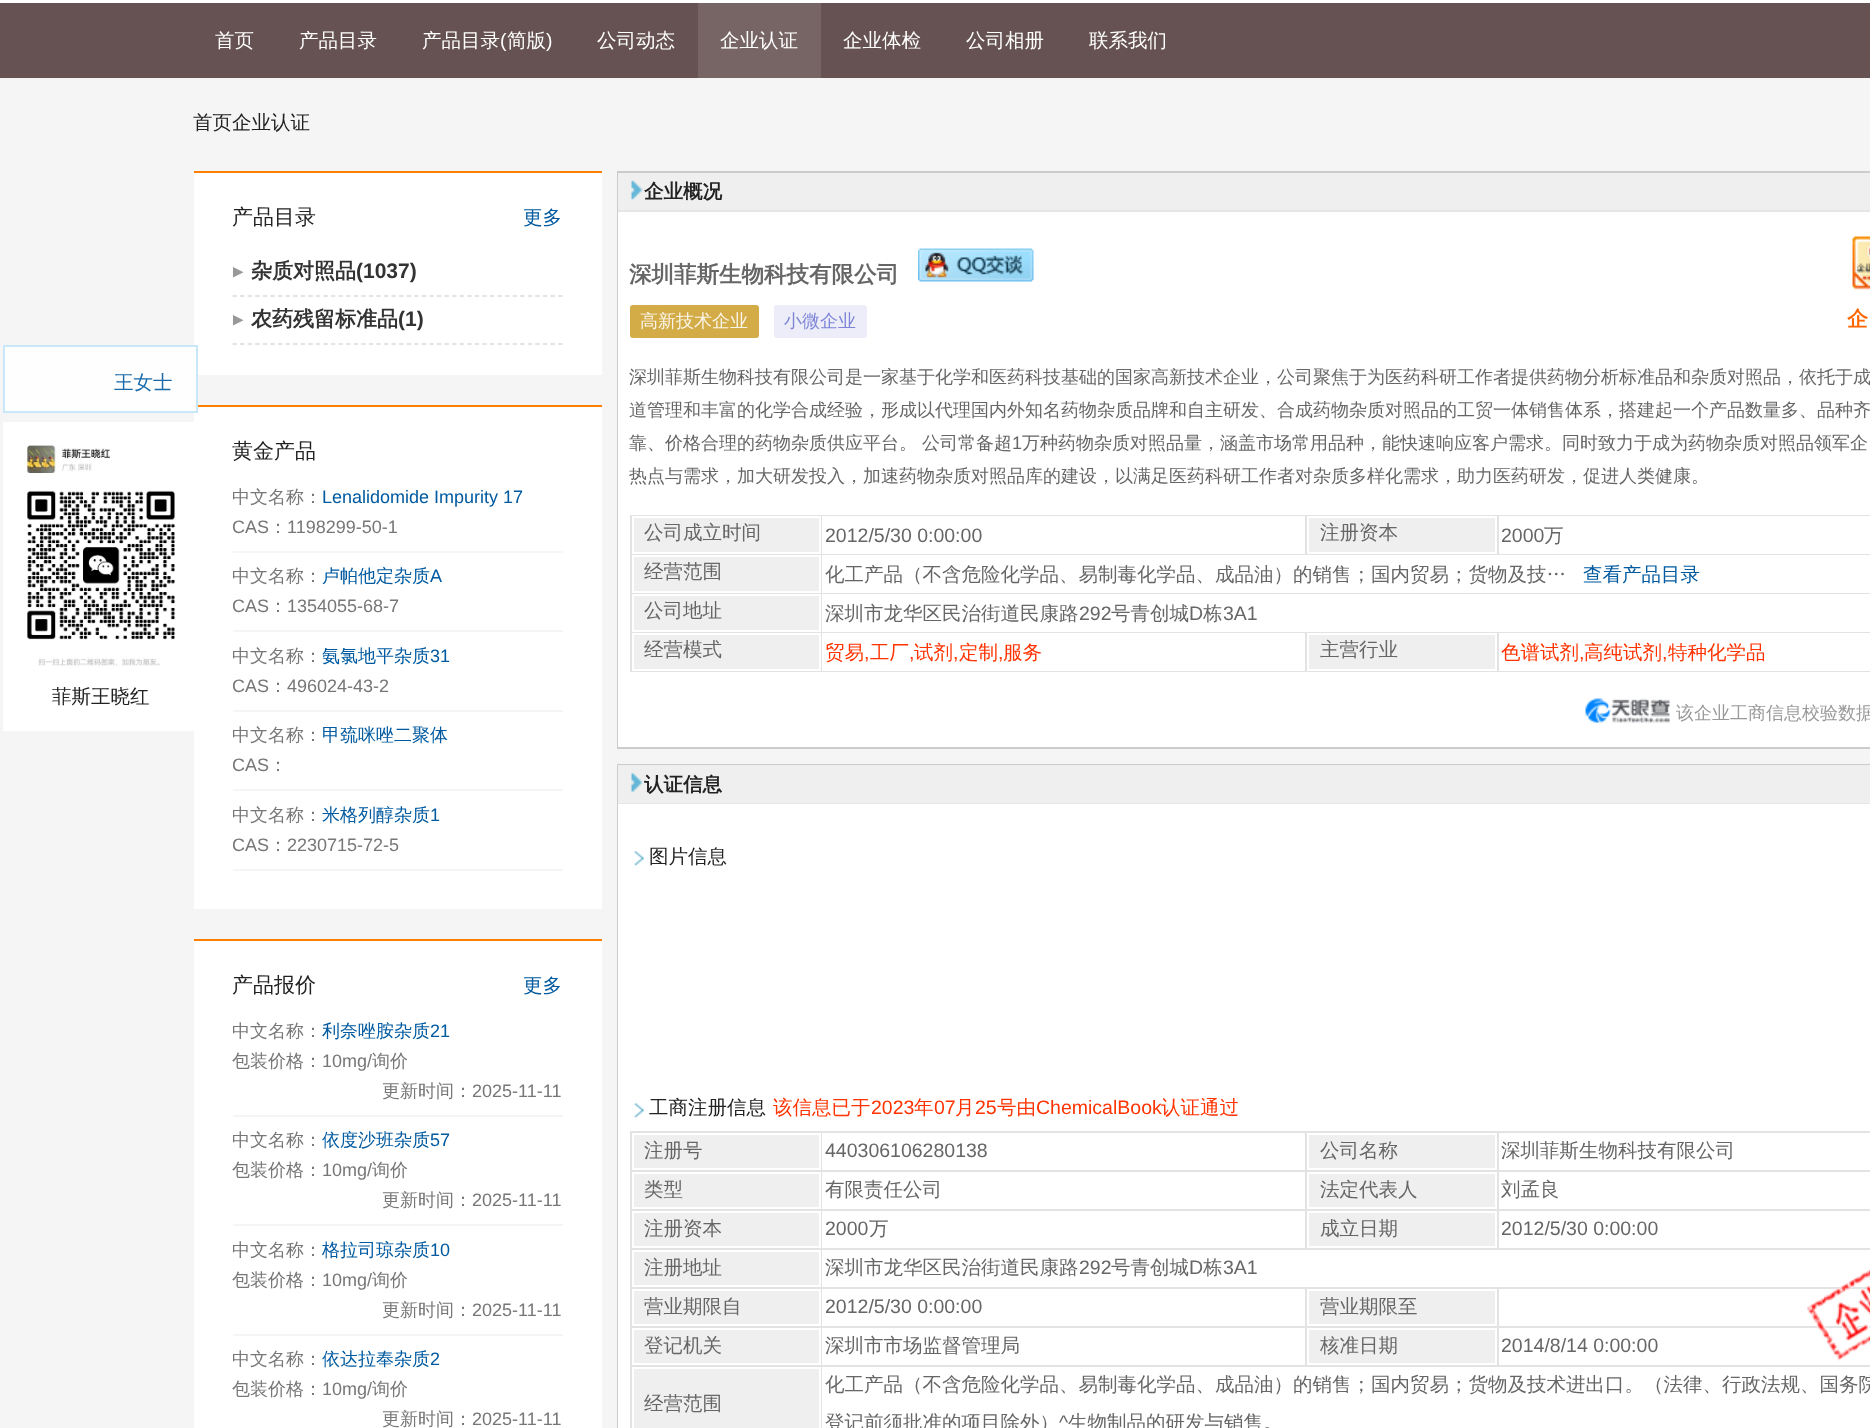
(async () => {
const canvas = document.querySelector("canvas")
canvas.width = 1870
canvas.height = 1428
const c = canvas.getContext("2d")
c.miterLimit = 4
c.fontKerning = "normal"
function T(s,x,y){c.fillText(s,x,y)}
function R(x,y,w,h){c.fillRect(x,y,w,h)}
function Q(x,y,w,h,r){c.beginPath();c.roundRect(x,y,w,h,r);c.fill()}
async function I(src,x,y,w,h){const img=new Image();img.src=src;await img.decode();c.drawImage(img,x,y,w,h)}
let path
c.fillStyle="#fff"
R(0,0,1870,1428)
c.fillStyle="#665252"
R(0,3,1870,75)
c.font="500 19.5px WenQuanYi Zen Hei"
c.fillStyle="#fff"
T("首页",215,47)
T("产品目录",299,47)
T("产品目录",422,47)
c.font="19.5px Liberation Sans"
T("(",500,47)
c.font="500 19.5px WenQuanYi Zen Hei"
T("简版",507,47)
c.font="19.5px Liberation Sans"
T(")",546,47)
c.font="500 19.5px WenQuanYi Zen Hei"
T("公司动态",597,47)
c.fillStyle="#776565"
R(698,3,123,75)
c.fillStyle="#fff"
T("企业认证",720,47)
T("企业体检",843,47)
T("公司相册",966,47)
T("联系我们",1089,47)
c.fillStyle="#f5f5f5"
R(0,78,1870,1350)
c.fillStyle="#fefefe"
R(3,345,195,68)
c.fillStyle="#fff"
R(194,173,408,202)
R(194,407,408,502)
c.fillStyle="#ff7f00"
R(194,405,408,2)
c.fillStyle="#fff2e6"
R(194,405,4,2)
c.strokeStyle="#c2e6f8e6"
c.lineWidth=2
c.strokeRect(4,346,193,66)
c.fillStyle="#196aa9"
T("王女士",114,389)
c.fillStyle="#fff"
R(3,422,191,309)
await I("1.png",26,445,149,221)
c.fillStyle="#222"
T("菲斯王晓红",52,703)
T("首页企业认证",193,129)
c.fillStyle="#ff7f00"
R(194,171,408,2)
c.font="500 21px WenQuanYi Zen Hei"
c.fillStyle="#222"
T("产品目录",232,224)
c.font="500 19.5px WenQuanYi Zen Hei"
c.fillStyle="#005aa0"
T("更多",523,224)
path = new Path2D("M232.5 296h330")
c.strokeStyle="#dbdbdb"
c.lineWidth=1.5
c.setLineDash([4.5,3.07])
c.stroke(path)
c.save()
c.beginPath()
c.rect(233,248,330,48)
c.clip()
c.font="bold 21px DejaVu Sans"
c.fillStyle="#999"
T("▸",232,278)
c.restore()
c.font="bold 21px WenQuanYi Zen Hei"
c.fillStyle="#333"
T("杂质对照品",251,278)
c.font="bold 21px Liberation Sans"
T("(1037)",356,278)
path = new Path2D("M232.5 344h330")
c.stroke(path)
c.save()
c.beginPath()
c.rect(233,297,330,47)
c.clip()
c.font="bold 21px DejaVu Sans"
c.fillStyle="#999"
T("▸",232,326)
c.restore()
c.font="bold 21px WenQuanYi Zen Hei"
T("农药残留标准品",251,326)
c.font="bold 21px Liberation Sans"
T("(1)",398,326)
c.font="500 21px WenQuanYi Zen Hei"
c.fillStyle="#222"
T("黄金产品",232,458)
c.fillStyle="#f5f5f5"
R(233,551,330,2)
c.save()
c.beginPath()
c.rect(233,482,330,69)
c.clip()
c.font="500 18px WenQuanYi Zen Hei"
c.fillStyle="#777"
T("中文名称：",232,503)
c.restore()
c.font="18px Liberation Sans"
c.fillStyle="#005aa0"
T("Lenalidomide Impurity 17",322,503)
c.save()
c.beginPath()
c.rect(233,482,330,69)
c.clip()
c.fillStyle="#777"
T("CAS",232,533)
c.restore()
c.font="500 18px WenQuanYi Zen Hei"
c.fillStyle="#777"
T("：",269,533)
c.font="18px Liberation Sans"
T("1198299-50-1",287,533)
c.fillStyle="#f5f5f5"
R(233,630,330,2)
c.save()
c.beginPath()
c.rect(233,561,330,69)
c.clip()
c.font="500 18px WenQuanYi Zen Hei"
c.fillStyle="#777"
T("中文名称：",232,582)
c.restore()
c.font="500 18px WenQuanYi Zen Hei"
c.fillStyle="#005aa0"
T("卢帕他定杂质",322,582)
c.font="18px Liberation Sans"
T("A",430,582)
c.save()
c.beginPath()
c.rect(233,561,330,69)
c.clip()
c.fillStyle="#777"
T("CAS",232,612)
c.restore()
c.font="500 18px WenQuanYi Zen Hei"
c.fillStyle="#777"
T("：",269,612)
c.font="18px Liberation Sans"
T("1354055-68-7",287,612)
c.fillStyle="#f5f5f5"
R(233,710,330,2)
c.save()
c.beginPath()
c.rect(233,641,330,69)
c.clip()
c.font="500 18px WenQuanYi Zen Hei"
c.fillStyle="#777"
T("中文名称：",232,662)
c.restore()
c.font="500 18px WenQuanYi Zen Hei"
c.fillStyle="#005aa0"
T("氨氯地平杂质",322,662)
c.font="18px Liberation Sans"
T("31",430,662)
c.save()
c.beginPath()
c.rect(233,641,330,69)
c.clip()
c.fillStyle="#777"
T("CAS",232,692)
c.restore()
c.font="500 18px WenQuanYi Zen Hei"
c.fillStyle="#777"
T("：",269,692)
c.font="18px Liberation Sans"
T("496024-43-2",287,692)
c.fillStyle="#f5f5f5"
R(233,789,330,2)
c.save()
c.beginPath()
c.rect(233,720,330,69)
c.clip()
c.font="500 18px WenQuanYi Zen Hei"
c.fillStyle="#777"
T("中文名称：",232,741)
c.restore()
c.font="500 18px WenQuanYi Zen Hei"
c.fillStyle="#005aa0"
T("甲巯咪唑二聚体",322,741)
c.save()
c.beginPath()
c.rect(233,720,330,69)
c.clip()
c.font="18px Liberation Sans"
c.fillStyle="#777"
T("CAS",232,771)
c.restore()
c.fillStyle="#777"
T("：",269,771)
c.fillStyle="#f5f5f5"
R(233,869,330,2)
c.save()
c.beginPath()
c.rect(233,800,330,69)
c.clip()
c.fillStyle="#777"
T("中文名称：",232,821)
c.restore()
c.fillStyle="#005aa0"
T("米格列醇杂质",322,821)
c.font="18px Liberation Sans"
T("1",430,821)
c.save()
c.beginPath()
c.rect(233,800,330,69)
c.clip()
c.fillStyle="#777"
T("CAS",232,851)
c.restore()
c.font="500 18px WenQuanYi Zen Hei"
c.fillStyle="#777"
T("：",269,851)
c.font="18px Liberation Sans"
T("2230715-72-5",287,851)
c.fillStyle="#fff"
R(194,941,408,487)
c.fillStyle="#ff7f00"
R(194,939,408,2)
c.font="500 21px WenQuanYi Zen Hei"
c.fillStyle="#222"
T("产品报价",232,992)
c.font="500 19.5px WenQuanYi Zen Hei"
c.fillStyle="#005aa0"
T("更多",523,992)
c.fillStyle="#f5f5f5"
R(233,1115,330,2)
c.save()
c.beginPath()
c.rect(233,1016,330,99)
c.clip()
c.font="500 18px WenQuanYi Zen Hei"
c.fillStyle="#777"
T("中文名称：",232,1037)
c.restore()
c.font="500 18px WenQuanYi Zen Hei"
c.fillStyle="#005aa0"
T("利奈唑胺杂质",322,1037)
c.font="18px Liberation Sans"
T("21",430,1037)
c.font="500 18px WenQuanYi Zen Hei"
c.fillStyle="#777"
T("包装价格：",232,1067)
c.font="18px Liberation Sans"
T("10mg/",322,1067)
c.font="500 18px WenQuanYi Zen Hei"
T("询价",372,1067)
T("更新时间：",382,1097)
c.font="18px Liberation Sans"
T("2025-11-11",472,1097)
c.fillStyle="#f5f5f5"
R(233,1224,330,2)
c.save()
c.beginPath()
c.rect(233,1125,330,99)
c.clip()
c.font="500 18px WenQuanYi Zen Hei"
c.fillStyle="#777"
T("中文名称：",232,1146)
c.restore()
c.font="500 18px WenQuanYi Zen Hei"
c.fillStyle="#005aa0"
T("依度沙班杂质",322,1146)
c.font="18px Liberation Sans"
T("57",430,1146)
c.font="500 18px WenQuanYi Zen Hei"
c.fillStyle="#777"
T("包装价格：",232,1176)
c.font="18px Liberation Sans"
T("10mg/",322,1176)
c.font="500 18px WenQuanYi Zen Hei"
T("询价",372,1176)
T("更新时间：",382,1206)
c.font="18px Liberation Sans"
T("2025-11-11",472,1206)
c.fillStyle="#f5f5f5"
R(233,1334,330,2)
c.save()
c.beginPath()
c.rect(233,1235,330,99)
c.clip()
c.font="500 18px WenQuanYi Zen Hei"
c.fillStyle="#777"
T("中文名称：",232,1256)
c.restore()
c.font="500 18px WenQuanYi Zen Hei"
c.fillStyle="#005aa0"
T("格拉司琼杂质",322,1256)
c.font="18px Liberation Sans"
T("10",430,1256)
c.font="500 18px WenQuanYi Zen Hei"
c.fillStyle="#777"
T("包装价格：",232,1286)
c.font="18px Liberation Sans"
T("10mg/",322,1286)
c.font="500 18px WenQuanYi Zen Hei"
T("询价",372,1286)
T("更新时间：",382,1316)
c.font="18px Liberation Sans"
T("2025-11-11",472,1316)
c.save()
c.beginPath()
c.rect(233,1344,330,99)
c.clip()
c.font="500 18px WenQuanYi Zen Hei"
T("中文名称：",232,1365)
c.restore()
c.font="500 18px WenQuanYi Zen Hei"
c.fillStyle="#005aa0"
T("依达拉奉杂质",322,1365)
c.font="18px Liberation Sans"
T("2",430,1365)
c.font="500 18px WenQuanYi Zen Hei"
c.fillStyle="#777"
T("包装价格：",232,1395)
c.font="18px Liberation Sans"
T("10mg/",322,1395)
c.font="500 18px WenQuanYi Zen Hei"
T("询价",372,1395)
T("更新时间：",382,1425)
c.font="18px Liberation Sans"
T("2025-11-11",472,1425)
c.strokeStyle="#ccc"
c.lineWidth=2
c.setLineDash([])
c.strokeRect(618,172,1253,576)
c.fillStyle="#efefef"
R(618,173,1252,37)
c.fillStyle="#e6e6e6"
R(618,210,1252,2)
await I("2.png",631,180,12,20)
c.font="bold 19.5px WenQuanYi Zen Hei"
c.fillStyle="#222"
T("企业概况",644,198)
c.fillStyle="#fff"
R(618,212,1252,535)
c.font="bold 22.5px WenQuanYi Zen Hei"
c.fillStyle="#666"
T("深圳菲斯生物科技有限公司",629,282)
await I("3.png",918,248,116,34)
c.fillStyle="#d3ac48"
Q(630,305,129,33,3)
c.font="500 18px WenQuanYi Zen Hei"
c.fillStyle="#faf5e8"
T("高新技术企业",640,327)
c.fillStyle="#ecedf9"
Q(774,305,93,33,3)
c.fillStyle="#7e85d5"
T("小微企业",784,327)
await I("4.png",1852,236,18,54)
c.font="bold 21px WenQuanYi Zen Hei"
c.fillStyle="#f60"
T("企",1847,326)
c.font="500 18px WenQuanYi Zen Hei"
c.fillStyle="#666"
T("深圳菲斯生物科技有限公司是一家基于化学和医药科技基础的国家高新技术企业，公司聚焦于为医药科研工作者提供药物分析标准品和杂质对照品，依托于成",629,383)
T("道管理和丰富的化学合成经验，形成以代理国内外知名药物杂质品牌和自主研发、合成药物杂质对照品的工贸一体销售体系，搭建起一个产品数量多、品种齐",629,416)
T("靠、价格合理的药物杂质供应平台。",629,449)
T("公司常备超",922,449)
c.font="18px Liberation Sans"
T("1",1012,449)
c.font="500 18px WenQuanYi Zen Hei"
T("万种药物杂质对照品量，涵盖市场常用品种，能快速响应客户需求。同时致力于成为药物杂质对照品领军企",1022,449)
T("热点与需求，加大研发投入，加速药物杂质对照品库的建设，以满足医药科研工作者对杂质多样化需求，助力医药研发，促进人类健康。",629,482)
c.fillStyle="#e3e3e3"
R(630,515,1240,157)
c.fillStyle="#efefef"
c.beginPath()
c.rect(633,517,187,36)
c.fill()
c.strokeStyle="#fff"
c.stroke()
c.font="500 19.5px WenQuanYi Zen Hei"
c.fillStyle="#666"
T("公司成立时间",644,539)
c.fillStyle="#fff"
R(822,516,483,38)
c.font="19.5px Liberation Sans"
c.fillStyle="#666"
T("2012/5/30 0:00:00",825,542)
c.fillStyle="#efefef"
c.beginPath()
c.rect(1308,517,188,36)
c.fill()
c.stroke()
c.font="500 19.5px WenQuanYi Zen Hei"
c.fillStyle="#666"
T("注册资本",1320,539)
c.fillStyle="#fff"
R(1499,516,371,38)
c.font="19.5px Liberation Sans"
c.fillStyle="#666"
T("2000",1501,542)
c.font="500 19.5px WenQuanYi Zen Hei"
T("万",1544,542)
c.fillStyle="#efefef"
c.beginPath()
c.rect(633,556,187,36)
c.fill()
c.stroke()
c.fillStyle="#666"
T("经营范围",644,578)
c.fillStyle="#fff"
R(822,555,1048,38)
c.fillStyle="#666"
T("化工产品（不含危险化学品、易制毒化学品、成品油）的销售；国内贸易；货物及技…",825,581)
c.fillStyle="#005aa0"
T("查看产品目录",1583,581)
c.fillStyle="#efefef"
c.beginPath()
c.rect(633,595,187,36)
c.fill()
c.stroke()
c.fillStyle="#666"
T("公司地址",644,617)
c.fillStyle="#fff"
R(822,594,1048,38)
c.fillStyle="#666"
T("深圳市龙华区民治街道民康路",825,620)
c.font="19.5px Liberation Sans"
T("292",1079,620)
c.font="500 19.5px WenQuanYi Zen Hei"
T("号青创城",1111,620)
c.font="19.5px Liberation Sans"
T("D",1189,620)
c.font="500 19.5px WenQuanYi Zen Hei"
T("栋",1203,620)
c.font="19.5px Liberation Sans"
T("3A1",1223,620)
c.fillStyle="#efefef"
c.beginPath()
c.rect(633,634,187,36)
c.fill()
c.stroke()
c.font="500 19.5px WenQuanYi Zen Hei"
c.fillStyle="#666"
T("经营模式",644,656)
c.fillStyle="#fff"
R(822,633,483,38)
c.fillStyle="#f30"
T("贸易",825,659)
c.font="19.5px Liberation Sans"
T(",",864,659)
c.font="500 19.5px WenQuanYi Zen Hei"
T("工厂",870,659)
c.font="19.5px Liberation Sans"
T(",",909,659)
c.font="500 19.5px WenQuanYi Zen Hei"
T("试剂",914,659)
c.font="19.5px Liberation Sans"
T(",",953,659)
c.font="500 19.5px WenQuanYi Zen Hei"
T("定制",959,659)
c.font="19.5px Liberation Sans"
T(",",998,659)
c.font="500 19.5px WenQuanYi Zen Hei"
T("服务",1003,659)
c.fillStyle="#efefef"
c.beginPath()
c.rect(1308,634,188,36)
c.fill()
c.stroke()
c.fillStyle="#666"
T("主营行业",1320,656)
c.fillStyle="#fff"
R(1499,633,371,38)
c.fillStyle="#f30"
T("色谱试剂",1501,659)
c.font="19.5px Liberation Sans"
T(",",1579,659)
c.font="500 19.5px WenQuanYi Zen Hei"
T("高纯试剂",1584,659)
c.font="19.5px Liberation Sans"
T(",",1662,659)
c.font="500 19.5px WenQuanYi Zen Hei"
T("特种化学品",1668,659)
await I("5.png",1585,698,85,25)
c.font="500 18px WenQuanYi Zen Hei"
c.fillStyle="#999"
T("该企业工商信息校验数据",1676,719)
c.strokeStyle="#ccc"
c.strokeRect(618,765,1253,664)
c.fillStyle="#efefef"
R(618,765,1252,38)
c.fillStyle="#e6e6e6"
R(618,803,1252,1)
await I("6.png",631,773,12,19)
c.font="bold 19.5px WenQuanYi Zen Hei"
c.fillStyle="#222"
T("认证信息",644,791)
c.fillStyle="#fff"
R(618,804,1252,624)
await I("7.png",633,851,12,15)
c.font="500 19.5px WenQuanYi Zen Hei"
c.fillStyle="#222"
T("图片信息",649,863)
await I("7.png",633,1103,12,15)
T("工商注册信息",649,1114)
c.fillStyle="#f30"
T("该信息已于",773,1114)
c.font="19.5px Liberation Sans"
T("2023",871,1114)
c.font="500 19.5px WenQuanYi Zen Hei"
T("年",914,1114)
c.font="19.5px Liberation Sans"
T("07",934,1114)
c.font="500 19.5px WenQuanYi Zen Hei"
T("月",955,1114)
c.font="19.5px Liberation Sans"
T("25",975,1114)
c.font="500 19.5px WenQuanYi Zen Hei"
T("号由",997,1114)
c.font="19.5px Liberation Sans"
T("ChemicalBook",1036,1114)
c.font="500 19.5px WenQuanYi Zen Hei"
T("认证通过",1161,1114)
c.fillStyle="#e3e3e3"
R(630,1131,1240,297)
c.fillStyle="#fff"
R(822,1250,1048,37)
R(1499,1289,371,37)
R(1499,1328,371,37)
await I("8.png",1807,1269,63,92)
c.fillStyle="#efefef"
c.beginPath()
c.rect(633,1134,187,35)
c.fill()
c.strokeStyle="#fff"
c.stroke()
c.fillStyle="#666"
T("注册号",644,1157)
c.fillStyle="#fff"
R(822,1133,483,37)
c.font="19.5px Liberation Sans"
c.fillStyle="#666"
T("440306106280138",825,1157)
c.fillStyle="#efefef"
c.beginPath()
c.rect(1308,1134,188,35)
c.fill()
c.stroke()
c.font="500 19.5px WenQuanYi Zen Hei"
c.fillStyle="#666"
T("公司名称",1320,1157)
c.fillStyle="#fff"
R(1499,1133,371,37)
c.fillStyle="#666"
T("深圳菲斯生物科技有限公司",1501,1157)
c.fillStyle="#efefef"
c.beginPath()
c.rect(633,1173,187,35)
c.fill()
c.stroke()
c.fillStyle="#666"
T("类型",644,1196)
c.fillStyle="#fff"
R(822,1172,483,37)
c.fillStyle="#666"
T("有限责任公司",825,1196)
c.fillStyle="#efefef"
c.beginPath()
c.rect(1308,1173,188,35)
c.fill()
c.stroke()
c.fillStyle="#666"
T("法定代表人",1320,1196)
c.fillStyle="#fff"
R(1499,1172,371,37)
c.fillStyle="#666"
T("刘孟良",1501,1196)
c.fillStyle="#efefef"
c.beginPath()
c.rect(633,1212,187,35)
c.fill()
c.stroke()
c.fillStyle="#666"
T("注册资本",644,1235)
c.fillStyle="#fff"
R(822,1211,483,37)
c.font="19.5px Liberation Sans"
c.fillStyle="#666"
T("2000",825,1235)
c.font="500 19.5px WenQuanYi Zen Hei"
T("万",869,1235)
c.fillStyle="#efefef"
c.beginPath()
c.rect(1308,1212,188,35)
c.fill()
c.stroke()
c.fillStyle="#666"
T("成立日期",1320,1235)
c.fillStyle="#fff"
R(1499,1211,371,37)
c.font="19.5px Liberation Sans"
c.fillStyle="#666"
T("2012/5/30 0:00:00",1501,1235)
c.fillStyle="#efefef"
c.beginPath()
c.rect(633,1251,187,35)
c.fill()
c.stroke()
c.font="500 19.5px WenQuanYi Zen Hei"
c.fillStyle="#666"
T("注册地址",644,1274)
T("深圳市龙华区民治街道民康路",825,1274)
c.font="19.5px Liberation Sans"
T("292",1079,1274)
c.font="500 19.5px WenQuanYi Zen Hei"
T("号青创城",1111,1274)
c.font="19.5px Liberation Sans"
T("D",1189,1274)
c.font="500 19.5px WenQuanYi Zen Hei"
T("栋",1203,1274)
c.font="19.5px Liberation Sans"
T("3A1",1223,1274)
c.fillStyle="#efefef"
c.beginPath()
c.rect(633,1290,187,35)
c.fill()
c.stroke()
c.font="500 19.5px WenQuanYi Zen Hei"
c.fillStyle="#666"
T("营业期限自",644,1313)
c.fillStyle="#fff"
R(822,1289,483,37)
c.font="19.5px Liberation Sans"
c.fillStyle="#666"
T("2012/5/30 0:00:00",825,1313)
c.fillStyle="#efefef"
c.beginPath()
c.rect(1308,1290,188,35)
c.fill()
c.stroke()
c.font="500 19.5px WenQuanYi Zen Hei"
c.fillStyle="#666"
T("营业期限至",1320,1313)
c.fillStyle="#efefef"
c.beginPath()
c.rect(633,1329,187,35)
c.fill()
c.stroke()
c.fillStyle="#666"
T("登记机关",644,1352)
c.fillStyle="#fff"
R(822,1328,483,37)
c.fillStyle="#666"
T("深圳市市场监督管理局",825,1352)
c.fillStyle="#efefef"
c.beginPath()
c.rect(1308,1329,188,35)
c.fill()
c.stroke()
c.fillStyle="#666"
T("核准日期",1320,1352)
c.font="19.5px Liberation Sans"
T("2014/8/14 0:00:00",1501,1352)
c.fillStyle="#efefef"
c.beginPath()
c.rect(633,1368,187,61)
c.fill()
c.stroke()
c.font="500 19.5px WenQuanYi Zen Hei"
c.fillStyle="#666"
T("经营范围",644,1410)
c.fillStyle="#fff"
R(822,1367,1048,61)
c.fillStyle="#666"
T("化工产品（不含危险化学品、易制毒化学品、成品油）的销售；国内贸易；货物及技术进出口。（法律、行政法规、国务院",825,1391)
T("登记前须批准的项目除外）",825,1429)
c.font="19.5px Liberation Sans"
T("^",1059,1429)
c.font="500 19.5px WenQuanYi Zen Hei"
T("生物制品的研发与销售。",1068,1429)
})()
